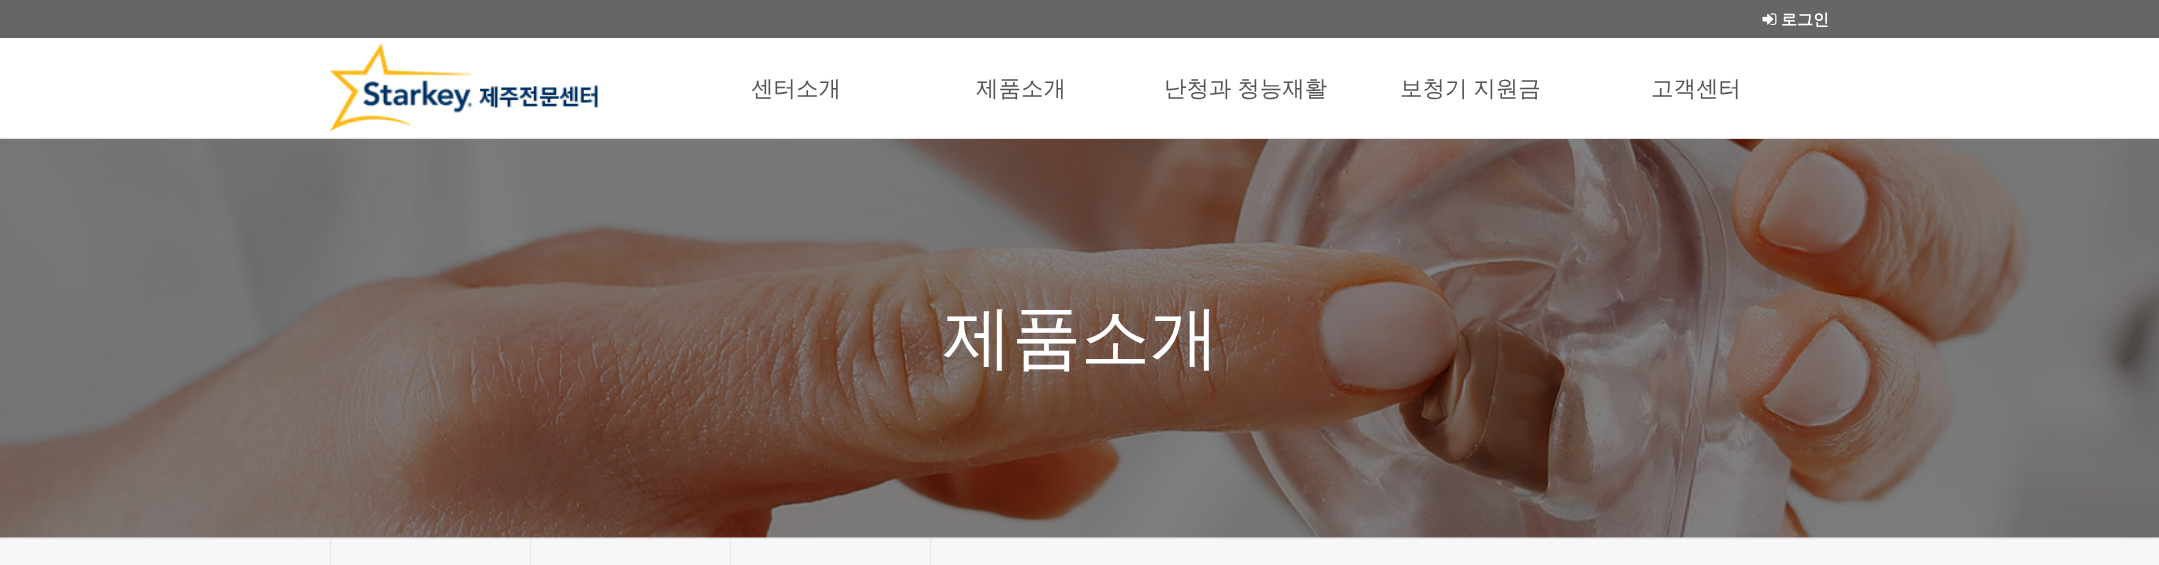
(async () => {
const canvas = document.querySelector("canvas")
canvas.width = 2159
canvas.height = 565
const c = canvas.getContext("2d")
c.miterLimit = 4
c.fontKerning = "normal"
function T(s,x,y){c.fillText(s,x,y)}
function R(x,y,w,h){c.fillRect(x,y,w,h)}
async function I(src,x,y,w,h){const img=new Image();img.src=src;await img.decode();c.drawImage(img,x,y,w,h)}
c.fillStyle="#fff"
R(0,0,2159,565)
c.fillStyle="#ddd"
R(0,138,2159,1)
c.fillStyle="#666"
R(0,0,2159,38)
await I("1.png",1762,13,15,12)
c.font="bold 16px WenQuanYi Zen Hei"
c.fillStyle="#fff"
T("로그인",1781,25)
await I("2.png",330,43,268,89)
c.font="500 22.5px WenQuanYi Zen Hei"
c.fillStyle="#555"
T("센터소개",751,96)
T("제품소개",976,96)
c.wordSpacing="-1px"
T("난청과 청능재활",1164,96)
T("보청기 지원금",1400,96)
c.wordSpacing="0px"
T("고객센터",1651,96)
await I("3.png",0,139,2159,399)
c.font="500 69px WenQuanYi Zen Hei"
c.fillStyle="#fff"
T("제품소개",943,361)
c.fillStyle="#f7f7f7"
R(0,539,2159,26)
c.fillStyle="#e5e5e5"
R(0,538,2159,1)
R(330,539,1,26)
R(530,539,1,26)
R(930,539,1,26)
R(730,539,1,26)
})()
